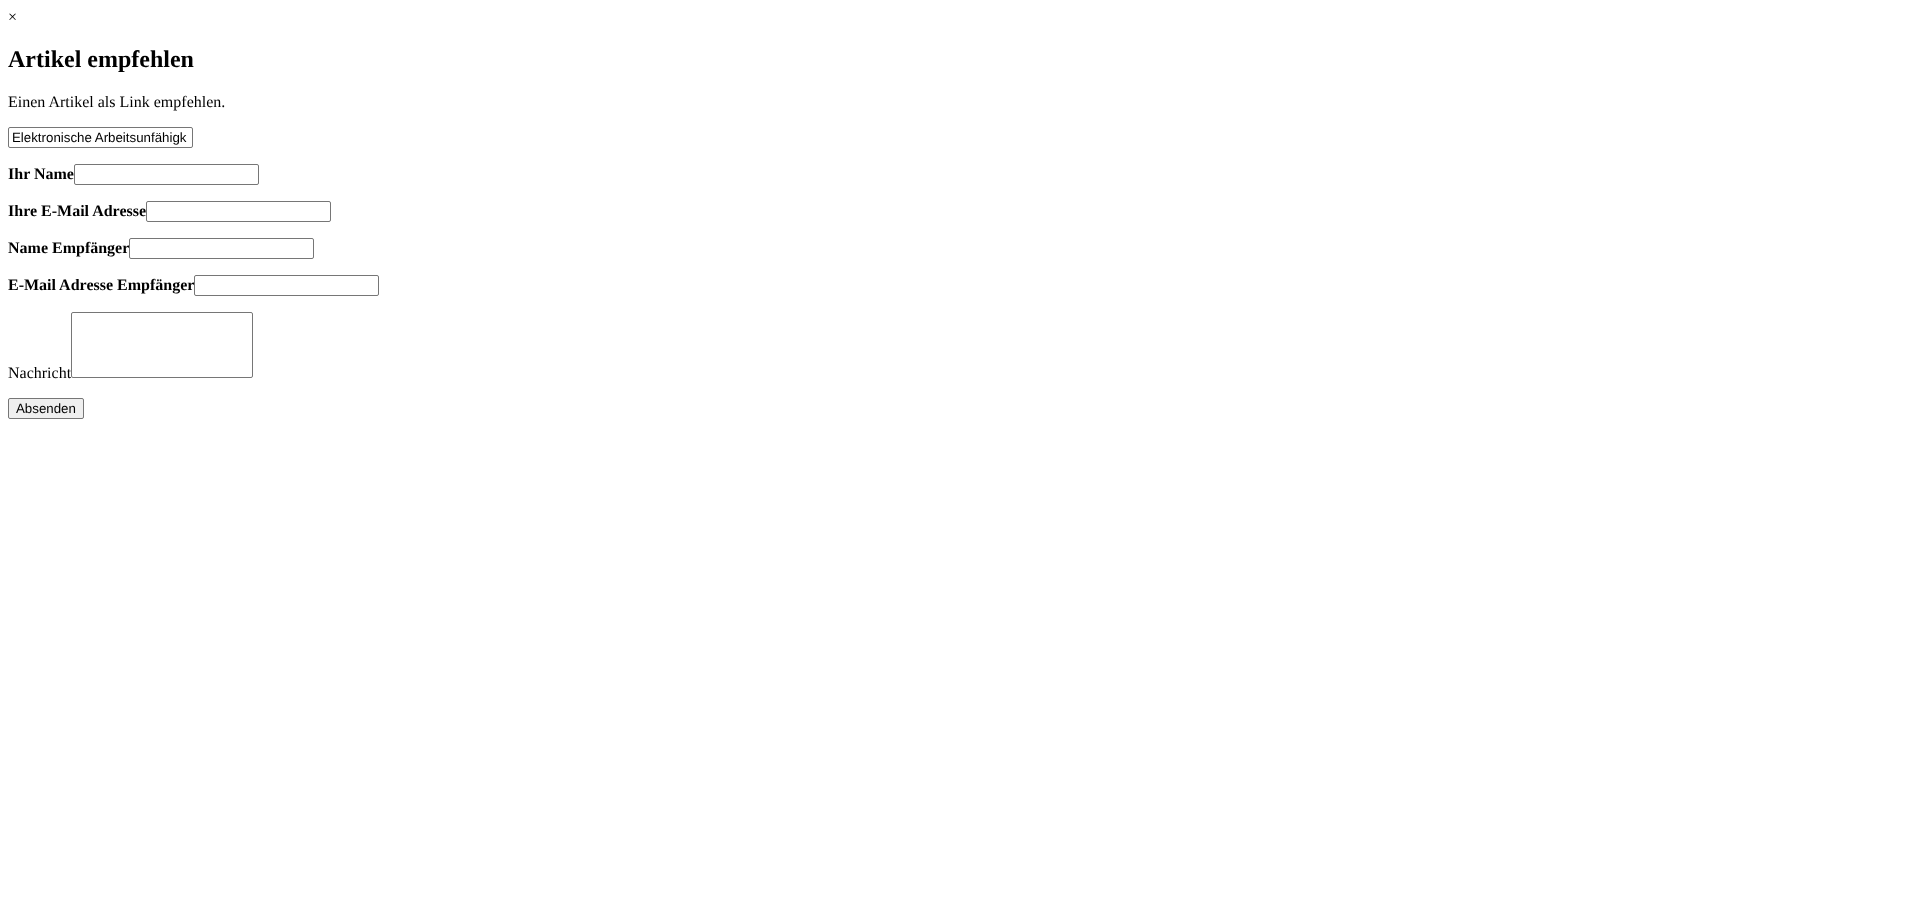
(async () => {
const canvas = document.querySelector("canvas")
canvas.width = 1922
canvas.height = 901
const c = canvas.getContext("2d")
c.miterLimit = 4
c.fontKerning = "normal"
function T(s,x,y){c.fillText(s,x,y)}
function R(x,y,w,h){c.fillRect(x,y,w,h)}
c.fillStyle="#fff"
R(0,0,1922,901)
c.font="16px Liberation Serif"
c.fillStyle="#000"
T("×",8,22)
c.font="bold 24px Liberation Serif"
T("Artikel empfehlen",8,67)
c.font="16px Liberation Serif"
T("Einen Artikel als Link empfehlen.",8,107)
c.beginPath()
c.roundRect(8.5,127.5,184,20,1.5)
c.strokeStyle="#767676"
c.stroke()
c.font="13.3px Liberation Sans"
T("Elektronische Arbeitsunfähigk",12,142)
c.font="bold 16px Liberation Serif"
T("Ihr Name",8,179)
c.beginPath()
c.roundRect(74.5,164.5,184,20,1.5)
c.stroke()
T("Ihre E-Mail Adresse",8,216)
c.beginPath()
c.roundRect(146.5,201.5,184,20,1.5)
c.stroke()
T("Name Empfänger",8,253)
c.beginPath()
c.roundRect(129.5,238.5,184,20,1.5)
c.stroke()
T("E-Mail Adresse Empfänger",8,290)
c.fillStyle="#fff"
c.beginPath()
c.roundRect(194.5,275.5,184,20,1.5)
c.fill()
c.stroke()
c.font="16px Liberation Serif"
c.fillStyle="#000"
T("Nachricht",8,378)
c.beginPath()
c.roundRect(71.5,312.5,181,65,1.5)
c.stroke()
c.fillStyle="#efefef"
c.beginPath()
c.roundRect(8.5,398.5,75,20,1.5)
c.fill()
c.stroke()
c.font="13.3px Liberation Sans"
c.fillStyle="#000"
T("Absenden",16,413)
})()
